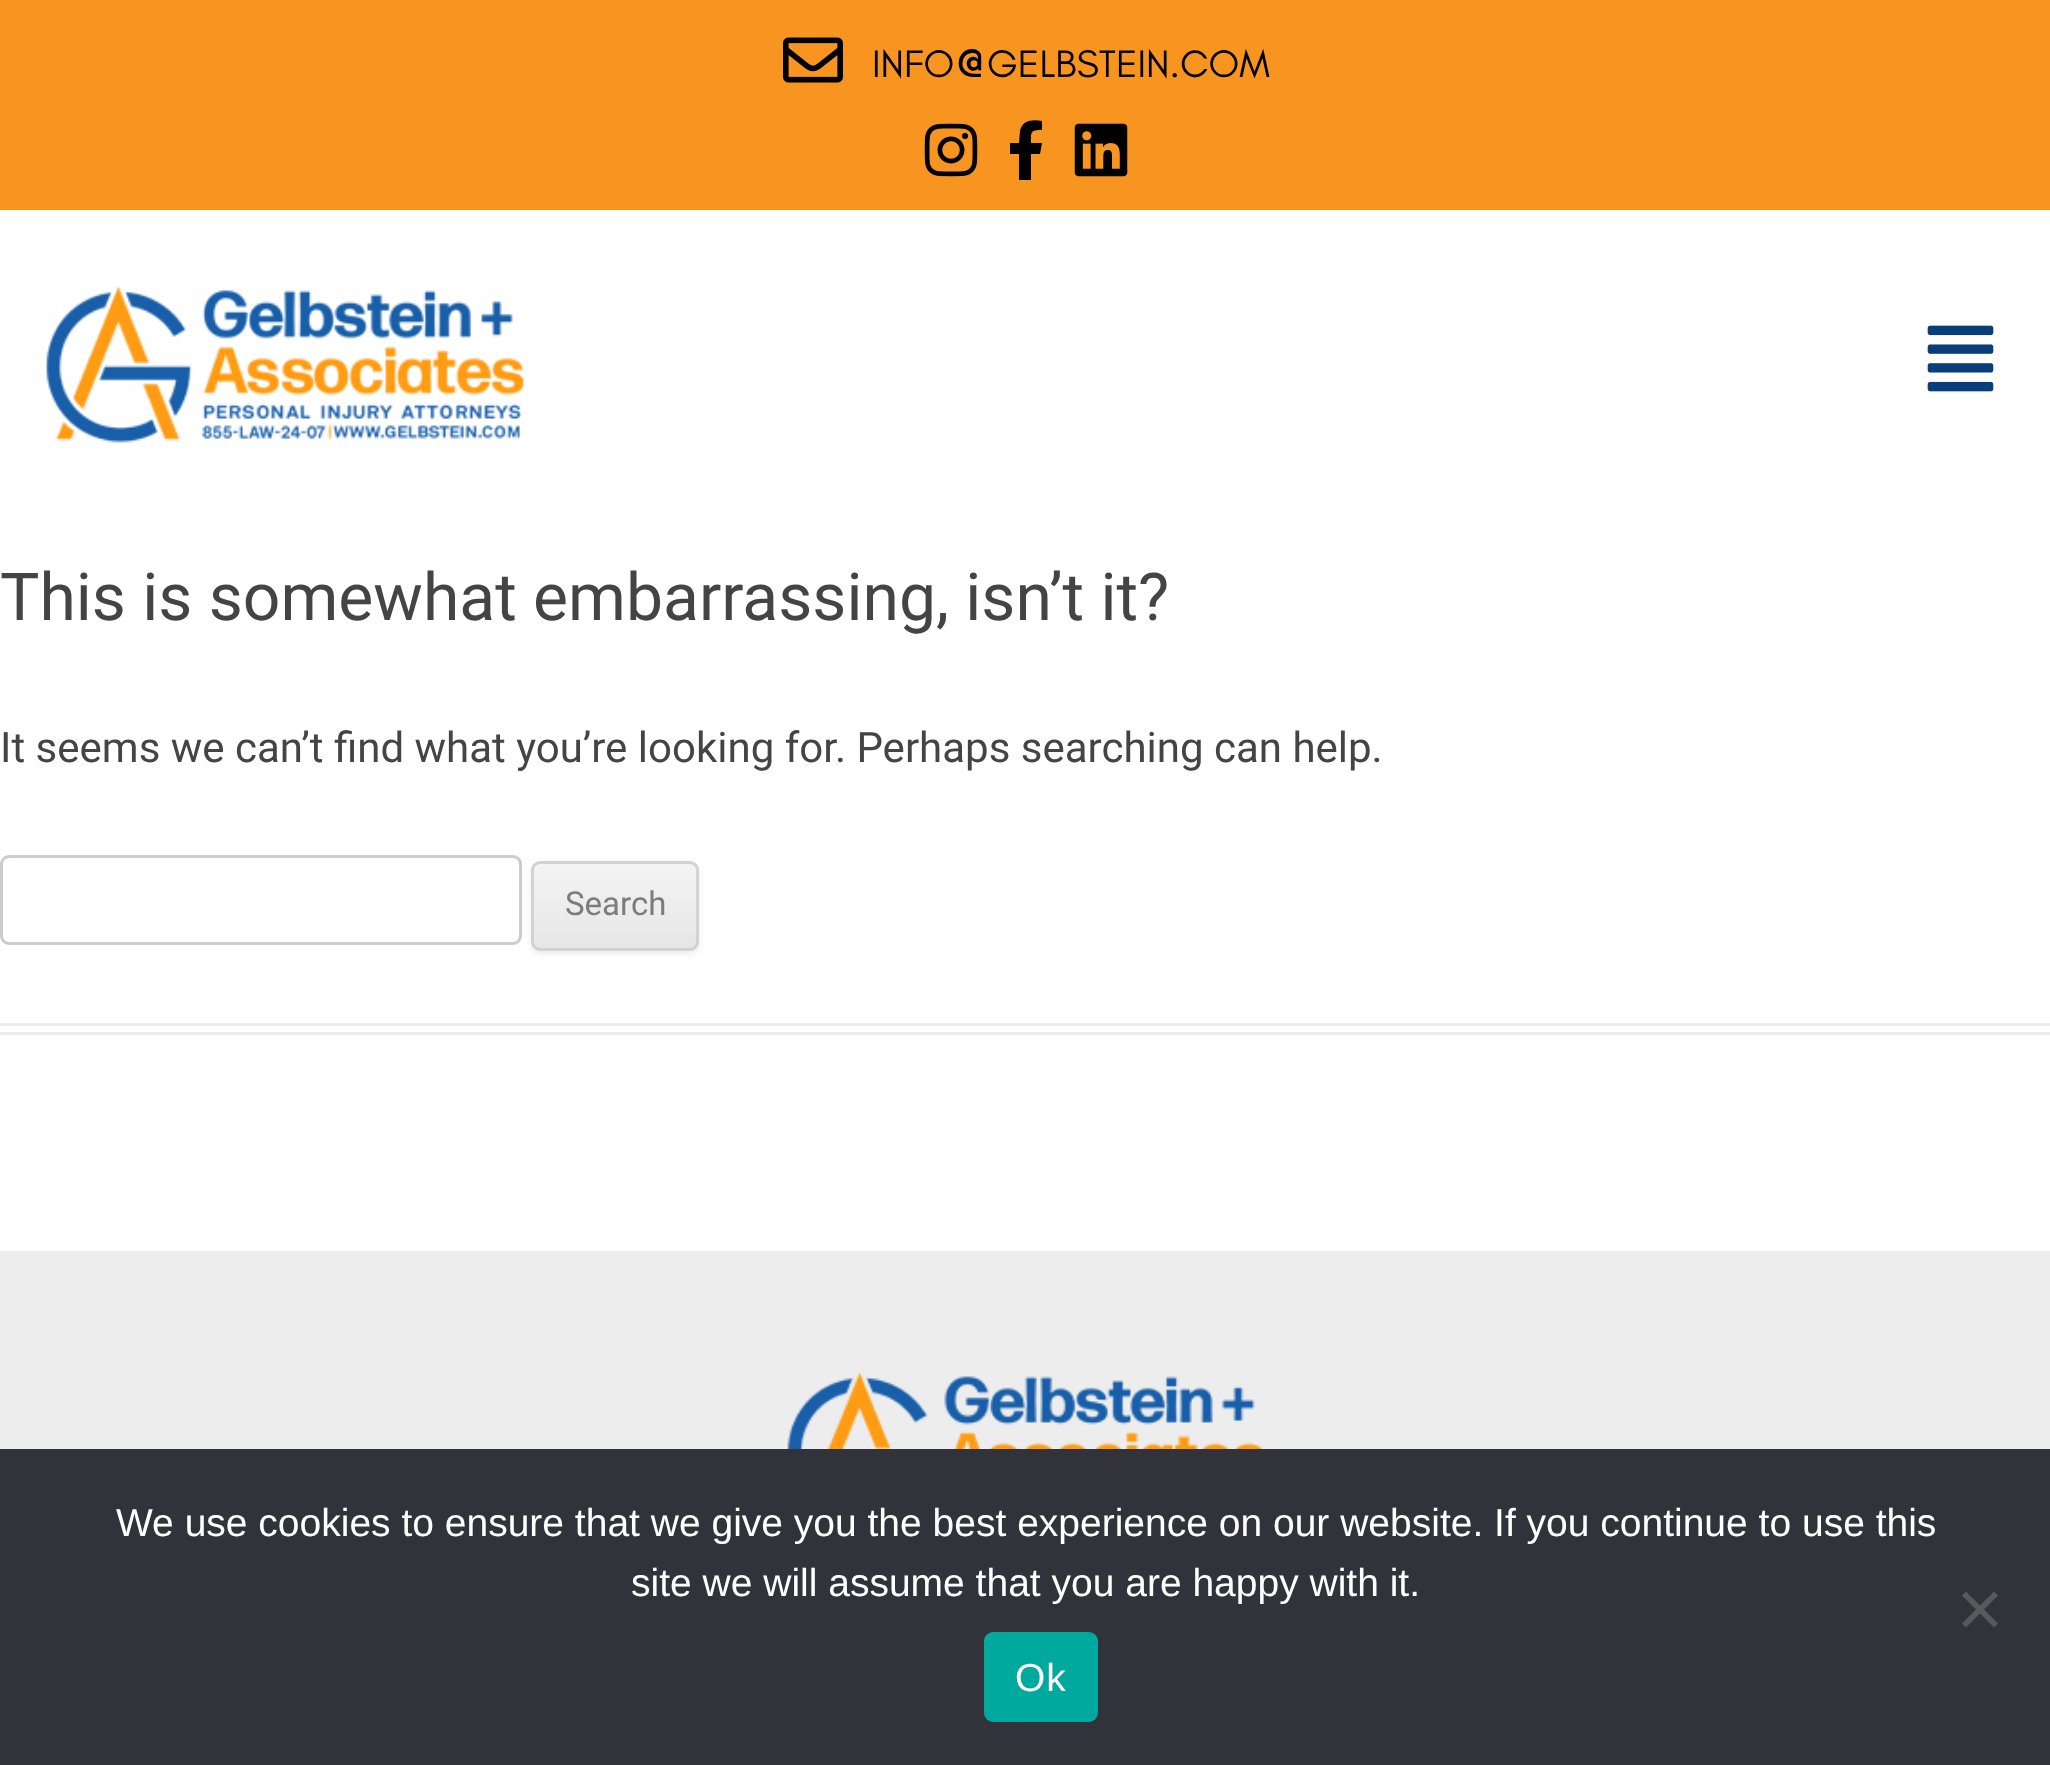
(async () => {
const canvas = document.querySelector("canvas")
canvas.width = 2050
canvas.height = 1765
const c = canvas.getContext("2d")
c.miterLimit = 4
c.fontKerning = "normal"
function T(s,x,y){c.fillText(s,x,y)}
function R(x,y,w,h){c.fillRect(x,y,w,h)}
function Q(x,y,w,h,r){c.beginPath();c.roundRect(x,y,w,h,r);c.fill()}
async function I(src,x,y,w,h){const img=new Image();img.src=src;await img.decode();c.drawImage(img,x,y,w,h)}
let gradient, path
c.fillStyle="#fff"
R(0,0,2050,1765)
c.fillStyle="#f89520"
R(0,0,2050,210)
await I("1.png",783,37,60,46)
c.font="39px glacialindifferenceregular"
c.fillStyle="#000"
T("INFO",872,77)
c.font="60px glacialindifferenceregular"
T("@",954,77)
c.font="39px glacialindifferenceregular"
T("GELBSTEIN.COM",987,77)
await I("2.png",924,123,54,54)
path = new Path2D("M1040 154l2-11h-11c0-11-1-13 11-13v-9c-9-2-20-1-22 10l-1 12h-9v11h9v26h12v-26z")
c.fill(path)
await I("3.png",1074,123,54,54)
await I("4.png",46,286,478,157)
await I("5.png",1927,325,67,67)
c.fillStyle="#ededed"
R(0,1023,2050,3)
R(0,1032,2050,3)
c.font="66px Roboto"
c.fillStyle="#444"
T("This is somewhat embarrassing, isn’t it?",0,620)
c.font="42px Roboto"
T("It seems we can’t find what you’re looking for. Perhaps searching can help.",0,762)
c.beginPath()
c.roundRect(1.5,856.5,519,87,7.5)
c.strokeStyle="#ccc"
c.lineWidth=3
c.stroke()
c.fillStyle="#4040401a"
c.filter="blur(3px)"
c.beginPath()
c.roundRect(531,864,168,90,9)
c.fill()
c.filter="none"
c.save()
c.beginPath()
c.roundRect(531,861,168,90,9)
c.clip()
gradient = c.createLinearGradient(615,864,615,948)
gradient.addColorStop(0,"#f4f4f4")
gradient.addColorStop(1,"#e6e6e6")
c.fillStyle = gradient
R(531,864,168,84)
c.restore()
c.beginPath()
c.roundRect(532.5,862.5,165,87,7.5)
c.strokeStyle="#d2d2d2"
c.stroke()
c.font="33px Roboto"
c.fillStyle="#7c7c7c"
T("Search",565,915)
c.fillStyle="#ededed"
R(0,1251,2050,198)
await I("6.png",787,1372,476,77)
c.fillStyle="#32323a"
R(0,1449,2050,316)
c.font="39px Liberation Sans"
c.fillStyle="#fff"
T("We use cookies to ensure that we give you the best experience on our website. If you continue to use this",116,1536)
T("site we will assume that you are happy with it.",631,1596)
c.fillStyle="#59595d"
path = new Path2D("M1994 1591.5l4 4l-32 32l-4-4z")
c.fill(path)
path = new Path2D("M1962 1595.5l4-4l32 32l-4 4z")
c.fill(path)
c.fillStyle="#00a99d"
Q(984,1632,114,90,9)
c.letterSpacing="1px"
c.fillStyle="#fff"
T("Ok",1015,1691)
})()
